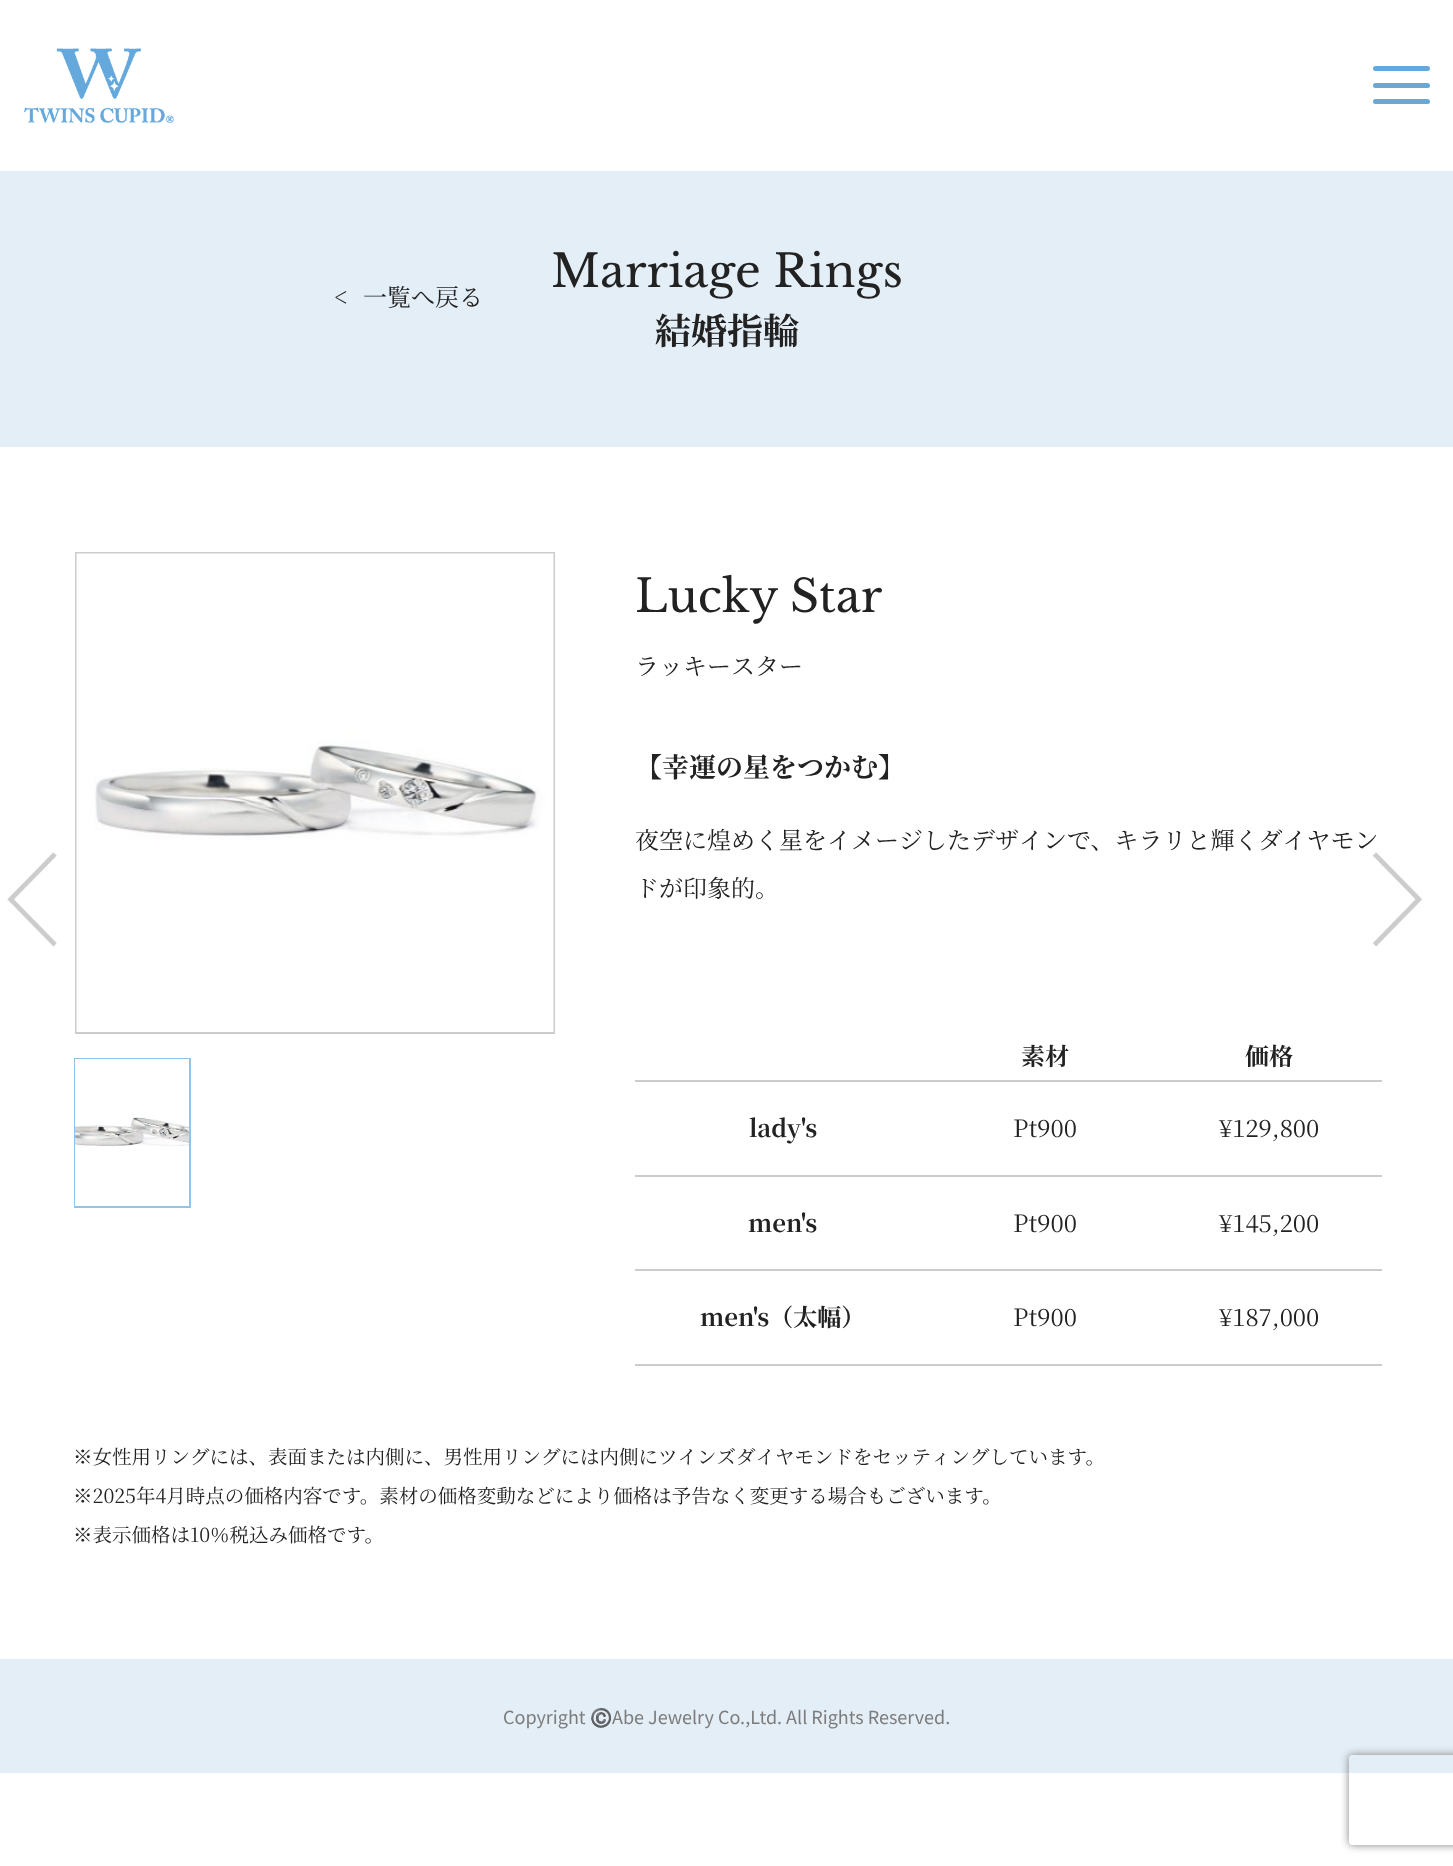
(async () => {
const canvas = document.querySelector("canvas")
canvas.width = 1453
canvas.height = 1866
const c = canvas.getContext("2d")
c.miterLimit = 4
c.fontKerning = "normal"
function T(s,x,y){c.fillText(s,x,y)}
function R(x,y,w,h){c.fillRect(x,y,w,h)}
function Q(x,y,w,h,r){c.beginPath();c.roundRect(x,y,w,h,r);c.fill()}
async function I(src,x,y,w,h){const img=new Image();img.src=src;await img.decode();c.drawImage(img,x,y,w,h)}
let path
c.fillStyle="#fff"
R(0,0,1453,1866)
await I("1.png",24,48,150,75)
c.fillStyle="#65a9dc"
Q(1373,66,57,5,2.5)
Q(1373,83,57,5,2.5)
Q(1373,99,57,5,2.5)
c.fillStyle="#e4eef7"
R(0,171,1453,276)
c.font="24px Noto Serif JP"
c.fillStyle="#222"
T("<",334,306)
T("一覧へ戻る",363,306)
c.font="45px Libre Baskerville"
T("Marriage Rings",551,287)
c.font="bold 36px Noto Serif JP"
T("結婚指輪",655,344)
c.strokeStyle="#ccc"
c.lineWidth=2
c.strokeRect(76,553,478,480)
await I("2.png",76,553,478,479)
c.strokeStyle="#93c3e6"
c.strokeRect(75,1059,115,148)
await I("3.png",75,1059,114,147)
c.font="45px Libre Baskerville"
T("Lucky Star",635,612)
c.font="24px Noto Serif JP"
T("ラッキースター",635,675)
c.font="bold 27px Noto Serif JP"
T("【幸運の星をつかむ】",635,777)
c.font="24px Noto Serif JP"
T("夜空に煌めく星をイメージしたデザインで、キラリと輝くダイヤモン",635,849)
T("ドが印象的。",635,897)
c.fillStyle="#ccc"
R(635,1080,747,2)
c.font="bold 24px Noto Serif JP"
c.fillStyle="#222"
T("素材",1021,1065)
T("価格",1245,1065)
c.fillStyle="#ccc"
R(635,1175,747,2)
c.fillStyle="#222"
T("lady's",749,1137)
c.font="24px Noto Serif JP"
T("Pt900",1013,1137)
T("¥129,800",1219,1137)
c.fillStyle="#ccc"
R(635,1269,747,2)
c.font="bold 24px Noto Serif JP"
c.fillStyle="#222"
T("men's",748,1232)
c.font="24px Noto Serif JP"
T("Pt900",1013,1232)
T("¥145,200",1219,1232)
c.fillStyle="#ccc"
R(635,1364,747,2)
c.font="bold 24px Noto Serif JP"
c.fillStyle="#222"
T("men's（太幅）",700,1326)
c.font="24px Noto Serif JP"
T("Pt900",1013,1326)
T("¥187,000",1219,1326)
await I("4.png",7,852,50,95)
await I("5.png",1372,852,50,95)
c.font="19.5px Noto Serif JP"
T("※女性用リングには、表面または内側に、男性用リングには内側にツインズダイヤモンドをセッティングしています。",73,1464)
T("※2025年4月時点の価格内容です。素材の価格変動などにより価格は予告なく変更する場合もございます。",73,1503)
T("※表示価格は10％税込み価格です。",73,1542)
c.fillStyle="#e4eef7"
R(0,1659,1453,114)
c.font="18px Noto Sans JP"
c.fillStyle="#7c7c7c"
T("Copyright",503,1724)
c.font="18px Noto Color Emoji"
T("©️",590,1724)
c.font="18px Noto Sans JP"
T("Abe Jewelry Co.,Ltd. All Rights Reserved.",612,1724)
c.save()
path = new Path2D("M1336 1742h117v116h-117zm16 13h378c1.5 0 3 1.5 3 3v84c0 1.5-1.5 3-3 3h-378c-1.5 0-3-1.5-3-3v-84c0-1.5 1.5-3 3-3z")
c.clip(path,"evenodd")
c.fillStyle="#808080"
c.filter="blur(4px)"
c.beginPath()
c.roundRect(1349,1755,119,90,3)
c.fill()
c.filter="none"
c.restore()
})()
